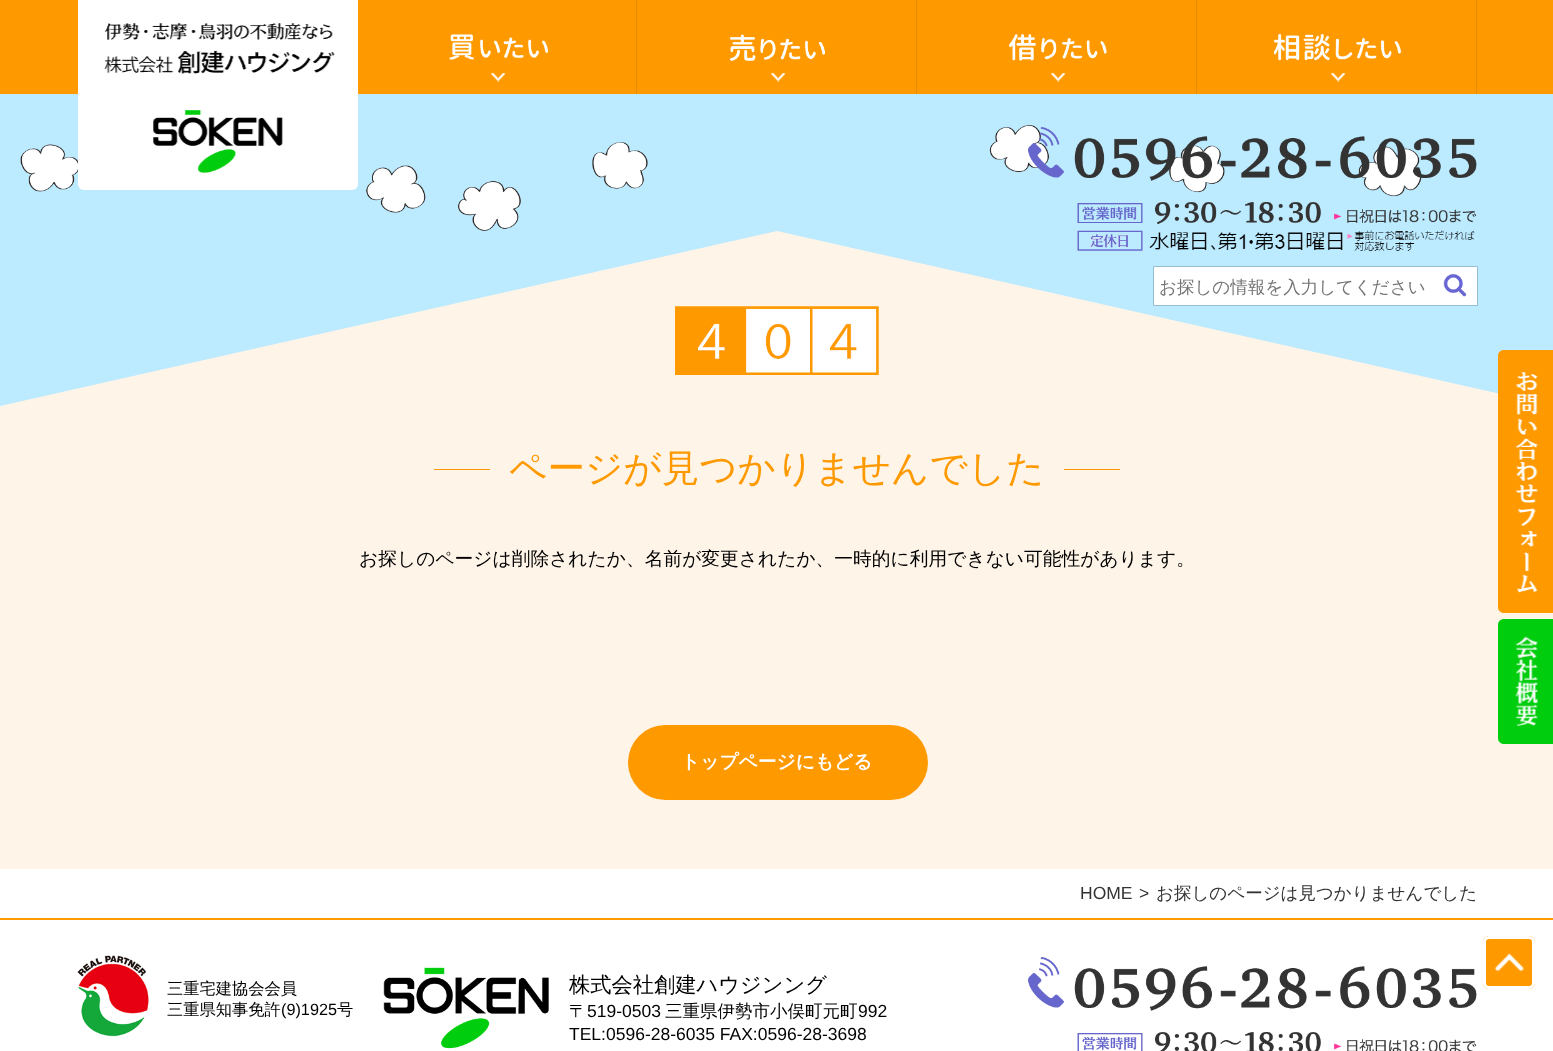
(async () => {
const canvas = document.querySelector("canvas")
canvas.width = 1553
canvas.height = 1051
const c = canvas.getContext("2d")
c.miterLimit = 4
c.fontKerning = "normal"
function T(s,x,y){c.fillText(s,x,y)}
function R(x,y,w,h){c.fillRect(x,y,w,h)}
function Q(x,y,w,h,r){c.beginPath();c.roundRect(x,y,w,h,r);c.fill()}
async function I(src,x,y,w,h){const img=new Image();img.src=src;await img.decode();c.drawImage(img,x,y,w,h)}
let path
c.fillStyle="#bceaff"
R(0,0,1553,1051)
c.fillStyle="#f90"
R(0,0,1553,94)
await I("7.png",20,125,1402,106)
c.fillStyle="#fff"
c.beginPath()
c.roundRect(78,0,280,190,[0,0,6,6])
c.fill()
await I("1.png",104,23,231,150)
await I("2.png",449,34,99,26)
await I("3.png",491,73,14,9)
c.fillStyle="#e78d05"
R(636,0,1,94)
await I("4.png",729,34,96,28)
await I("3.png",771,73,14,9)
R(916,0,1,94)
await I("5.png",1008,34,99,27)
await I("3.png",1051,73,14,9)
R(1196,0,1,94)
await I("6.png",1273,33,129,28)
await I("3.png",1331,73,14,9)
R(1476,0,1,94)
await I("8.png",1028,127,449,54)
await I("9.png",1077,202,400,23)
c.fillStyle="#fff4e8"
R(0,231,1553,638)
await I("12.png",675,306,204,69)
c.fillStyle="#bceaff"
path = new Path2D("M0 231h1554v175l-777-175l-777 175z")
c.fill(path)
await I("10.png",1077,230,398,21)
c.fillStyle="#fff"
c.beginPath()
c.rect(1153.5,266.5,324,39)
c.fill()
c.strokeStyle="#94bed1"
c.stroke()
c.font="500 17.5px WenQuanYi Zen Hei"
c.fillStyle="#757575"
T("お探しの情報を入力してください",1159,293)
await I("11.png",1443,273,24,24)
c.fillStyle="#f90"
R(434,469,56,1)
c.font="500 37.5px WenQuanYi Zen Hei"
T("ページが見つかりませんでした",509,481)
R(1064,469,56,1)
c.font="500 18.75px WenQuanYi Zen Hei"
c.fillStyle="#000"
T("お探しのページは削除されたか、名前が変更されたか、一時的に利用できない可能性があります。",359,565)
c.fillStyle="#f90"
Q(628,725,300,75,37.5)
c.font="bold 18.75px WenQuanYi Zen Hei"
c.fillStyle="#fff"
T("トップページにもどる",681,768)
c.fillStyle="#f90"
path = new Path2D("M1504 350h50v263h-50c-3.5 0-6-2.5-6-6v-251c0-3.5 2.5-6 6-6z")
c.fill(path)
await I("13.png",1515,372,23,221)
c.fillStyle="#00cd0d"
path = new Path2D("M1504 619h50v125h-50c-3.5 0-6-2.5-6-6v-113c0-3.5 2.5-6 6-6z")
c.fill(path)
await I("14.png",1515,636,23,90)
c.fillStyle="#fff"
R(0,869,1553,49)
c.fillStyle="#f90"
R(0,918,1553,2)
c.font="17.5px Liberation Sans"
c.fillStyle="#333"
T("HOME",1080,899)
T(">",1139,899)
c.font="500 17.5px WenQuanYi Zen Hei"
T("お探しのページは見つかりませんでした",1156,899)
c.fillStyle="#fff"
R(0,920,1553,131)
c.fillStyle="#f90"
Q(1483,936,52,53,6)
await I("15.png",1495,953,29,19)
c.beginPath()
c.roundRect(1484.5,937.5,49,50,4.5)
c.strokeStyle="#fff"
c.lineWidth=3
c.stroke()
await I("16.png",77,955,72,82)
c.font="500 16.25px WenQuanYi Zen Hei"
c.fillStyle="#000"
T("三重宅建協会会員",167,994)
T("三重県知事免許",167,1015)
c.font="16.25px Liberation Sans"
T("(9)1925",281,1015)
c.font="500 16.25px WenQuanYi Zen Hei"
T("号",337,1015)
await I("17.png",383,967,166,82)
c.font="500 21.25px WenQuanYi Zen Hei"
T("株式会社創建ハウジンング",569,992)
c.font="500 17.5px WenQuanYi Zen Hei"
T("〒",569,1017)
c.font="17.5px Liberation Sans"
T("519-0503",587,1017)
c.font="500 17.5px WenQuanYi Zen Hei"
T("三重県伊勢市小俣町元町",665,1017)
c.font="17.5px Liberation Sans"
T("992",858,1017)
T("TEL:0596-28-6035 FAX:0596-28-3698",569,1040)
await I("18.png",1028,957,449,54)
await I("19.png",1077,1032,400,19)
})()
